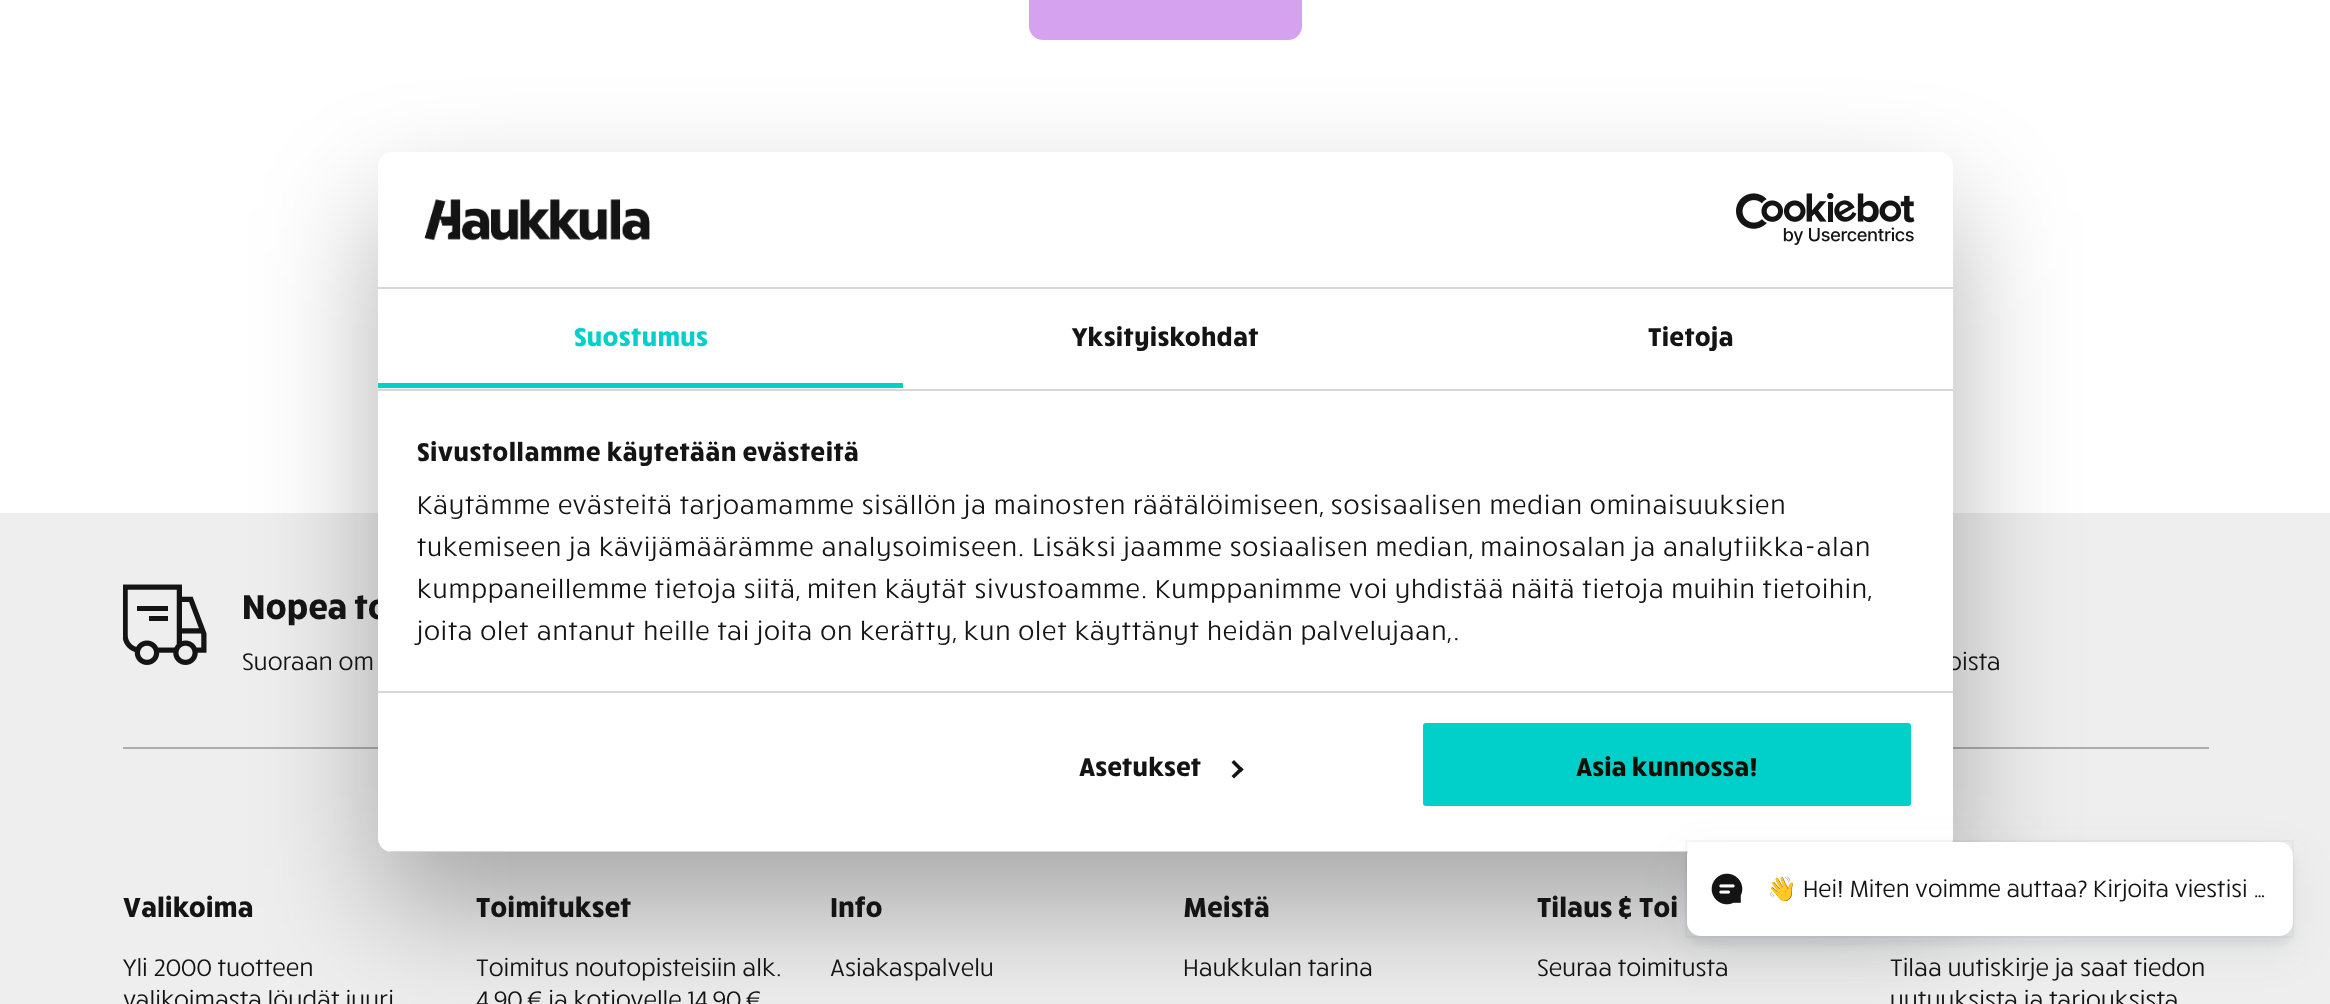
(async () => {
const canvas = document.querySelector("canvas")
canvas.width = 2330
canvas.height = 1004
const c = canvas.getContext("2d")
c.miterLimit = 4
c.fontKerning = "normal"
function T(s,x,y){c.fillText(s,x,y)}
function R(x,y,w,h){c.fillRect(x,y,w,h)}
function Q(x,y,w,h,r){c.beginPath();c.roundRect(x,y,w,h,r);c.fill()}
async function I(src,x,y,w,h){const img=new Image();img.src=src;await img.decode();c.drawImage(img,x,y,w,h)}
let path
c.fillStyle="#fff"
R(0,0,2330,1004)
c.fillStyle="#d5a2ef"
Q(1029,-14,273,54,14)
c.fillStyle="#eee"
R(0,513,2330,491)
await I("3.png",123,584,84,81)
c.fillStyle="#adadad"
R(123,747,2086,2)
c.fillStyle="#0000004d"
c.filter="blur(59.5px)"
c.beginPath()
c.roundRect(378,208,1575,700,14)
c.fill()
c.filter="none"
c.font="bold 35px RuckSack"
c.fillStyle="#141414"
T("Nopea to",242,619)
c.font="24.5px RuckSack"
T("oista",1947,670)
c.fillStyle="#fff"
Q(378,152,1575,700,14)
c.fillStyle="#d6d6d6"
R(378,287,1575,2)
await I("1.png",424,199,226,42)
await I("2.png",1736,193,179,52)
R(378,389,1575,2)
c.fillStyle="#00d0c9"
R(378,383,525,5)
c.letterSpacing="0.25px"
c.font="bold 26.25px RuckSack"
T("Suostumus",574,346)
c.fillStyle="#141414"
T("Yksityiskohdat",1072,346)
T("Tietoja",1648,346)
c.fillStyle="#d6d6d6"
R(378,691,1575,2)
c.letterSpacing="0.45px"
c.fillStyle="#141414"
T("Sivustollamme käytetään evästeitä",417,461)
c.letterSpacing="0.88px"
c.font="26.25px RuckSack"
T("Käytämme evästeitä tarjoamamme sisällön ja mainosten räätälöimiseen, sosisaalisen median ominaisuuksien",417,514)
T("tukemiseen ja kävijämäärämme analysoimiseen. Lisäksi jaamme sosiaalisen median, mainosalan ja analytiikka-alan",417,556)
c.wordSpacing="-0.1px"
T("kumppaneillemme tietoja siitä, miten käytät sivustoamme. Kumppanimme voi yhdistää näitä tietoja muihin tietoihin,",417,598)
c.wordSpacing="0px"
T("joita olet antanut heille tai joita on kerätty, kun olet käyttänyt heidän palvelujaan,.",417,640)
c.save()
c.beginPath()
c.roundRect(378,152,1575,700,14)
c.clip()
c.fillStyle="#d6d6d6"
R(387,851,1301,1)
c.restore()
c.letterSpacing="0px"
c.font="bold 26.25px RuckSack"
T("Asetukset",1079,776)
path = new Path2D("M1234 760l9.5 9.5l-2.5 2.5l-9.5-9.5z")
c.fill(path)
path = new Path2D("M1241 767l2.5 2.5l-9.5 9l-2.5-2.5z")
c.fill(path)
c.fillStyle="#00d0c9"
c.beginPath()
c.roundRect(1421,721,492,87,5)
c.fill()
c.strokeStyle="#fdfdfd"
c.lineWidth=4
c.stroke()
c.fillStyle="#130f05"
T("Asia kunnossa!",1576,776)
c.font="24.5px RuckSack"
c.fillStyle="#141414"
T("Suoraan om",242,670)
c.fillStyle="#373f4714"
c.filter="blur(22px)"
c.beginPath()
c.roundRect(1687,856,606,96,14)
c.fill()
c.filter="none"
c.filter="blur(3.5px)"
c.beginPath()
c.roundRect(1687,849,606,96,14)
c.fill()
c.filter="none"
c.strokeStyle="#373f470a"
c.lineWidth=2
c.strokeRect(1686,841,607,96)
c.fillStyle="#fff"
Q(1687,842,606,94,14)
await I("4.png",1711,873,32,32)
c.save()
c.beginPath()
c.rect(1768,875,504,28)
c.clip()
c.font="23.9px Noto Color Emoji"
c.fillStyle="#141414"
T("👋",1767,897)
c.restore()
c.font="23.9px RuckSack"
c.fillStyle="#141414"
T("Hei! Miten voimme auttaa? Kirjoita viestisi …",1803,897)
c.font="bold 28px RuckSack"
T("Valikoima",123,917)
c.font="24.5px RuckSack"
T("Yli 2000 tuotteen",123,976)
T("valikoimasta löydät juuri",123,1008)
c.font="bold 28px RuckSack"
T("Toimitukset",476,917)
c.font="24.5px RuckSack"
T("Toimitus noutopisteisiin alk.",476,976)
T("4,90 € ja kotiovelle 14,90 €",476,1008)
c.font="bold 28px RuckSack"
T("Info",830,917)
c.font="24.5px RuckSack"
T("Asiakaspalvelu",830,976)
c.font="bold 28px RuckSack"
T("Meistä",1183,917)
c.font="24.5px RuckSack"
T("Haukkulan tarina",1183,976)
c.font="bold 28px RuckSack"
T("Tilaus & Toi",1537,917)
c.font="24.5px RuckSack"
T("Seuraa toimitusta",1537,976)
T("Tilaa uutiskirje ja saat tiedon",1890,976)
T("uutuuksista ja tarjouksista",1890,1008)
})()
